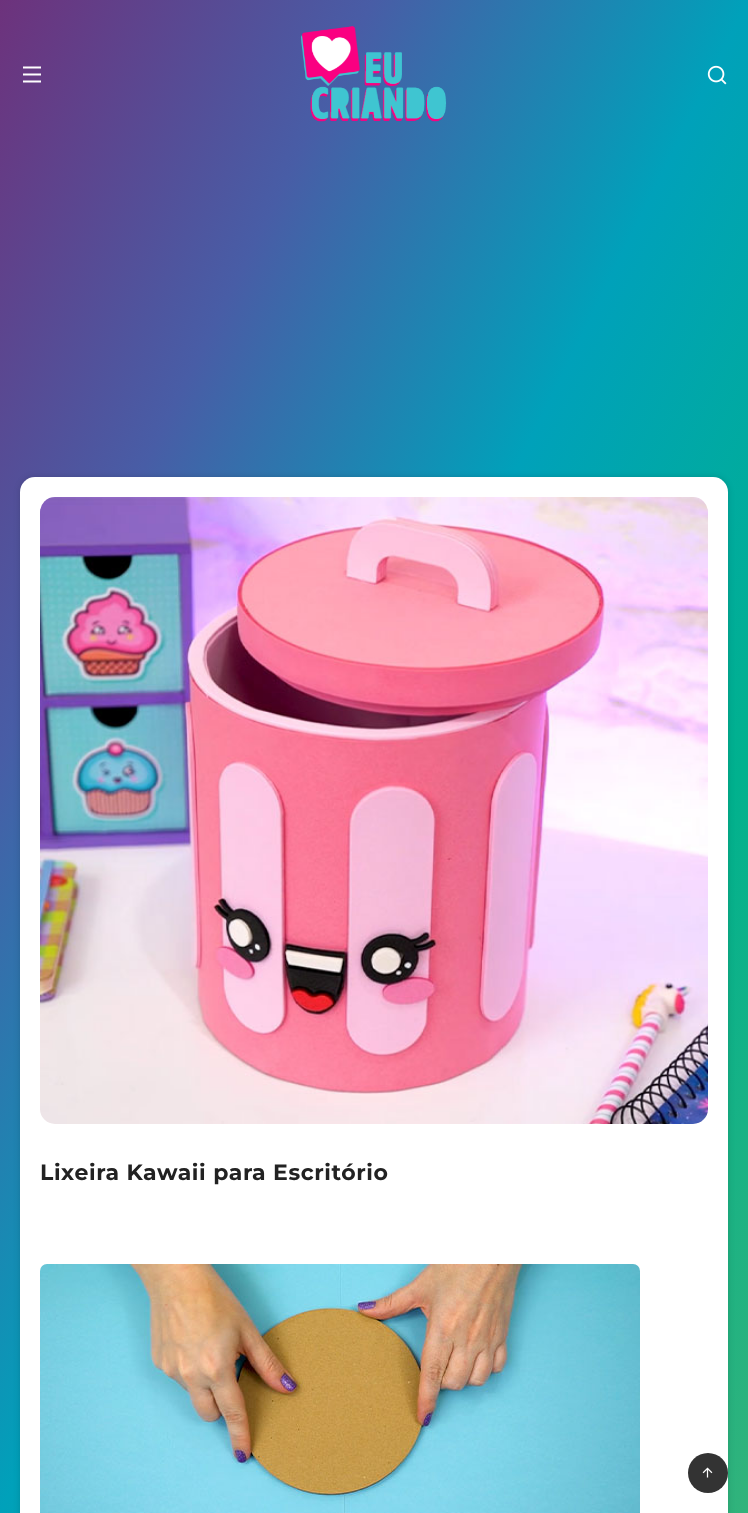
(async () => {
const canvas = document.querySelector("canvas")
canvas.width = 748
canvas.height = 1513
const c = canvas.getContext("2d")
c.miterLimit = 4
c.fontKerning = "normal"
function T(s,x,y){c.fillText(s,x,y)}
function R(x,y,w,h){c.fillRect(x,y,w,h)}
function Q(x,y,w,h,r){c.beginPath();c.roundRect(x,y,w,h,r);c.fill()}
async function I(src,x,y,w,h){const img=new Image();img.src=src;await img.decode();c.drawImage(img,x,y,w,h)}
let gradient
c.fillStyle="#fff"
R(0,0,748,1513)
gradient = c.createLinearGradient(-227,459,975,1054)
gradient.addColorStop(0,"#6d327c")
gradient.addColorStop(.25,"#485da6")
gradient.addColorStop(.5,"#00a1ba")
gradient.addColorStop(.75,"#01b18e")
gradient.addColorStop(1,"#32b37b")
c.fillStyle = gradient
R(0,0,748,1513)
await I("1.png",23,66,18,17)
await I("2.png",301,26,146,96)
await I("3.png",707,65,20,20)
c.fillStyle="#00000026"
c.filter="blur(3px)"
c.beginPath()
c.roundRect(20,477,708,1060,15)
c.fill()
c.filter="none"
c.fillStyle="#fff"
Q(20,477,708,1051,15)
await I("4.png",40,497,668,627)
c.letterSpacing="0.6px"
c.font="bold 22px Montserrat"
c.fillStyle="#222"
T("Lixeira Kawaii para Escritório",40,1180)
await I("5.png",40,1264,600,249)
c.fillStyle="#333"
c.beginPath()
c.arc(708,1473,20,0,7)
c.fill()
await I("6.png",702,1467,11,11)
})()
